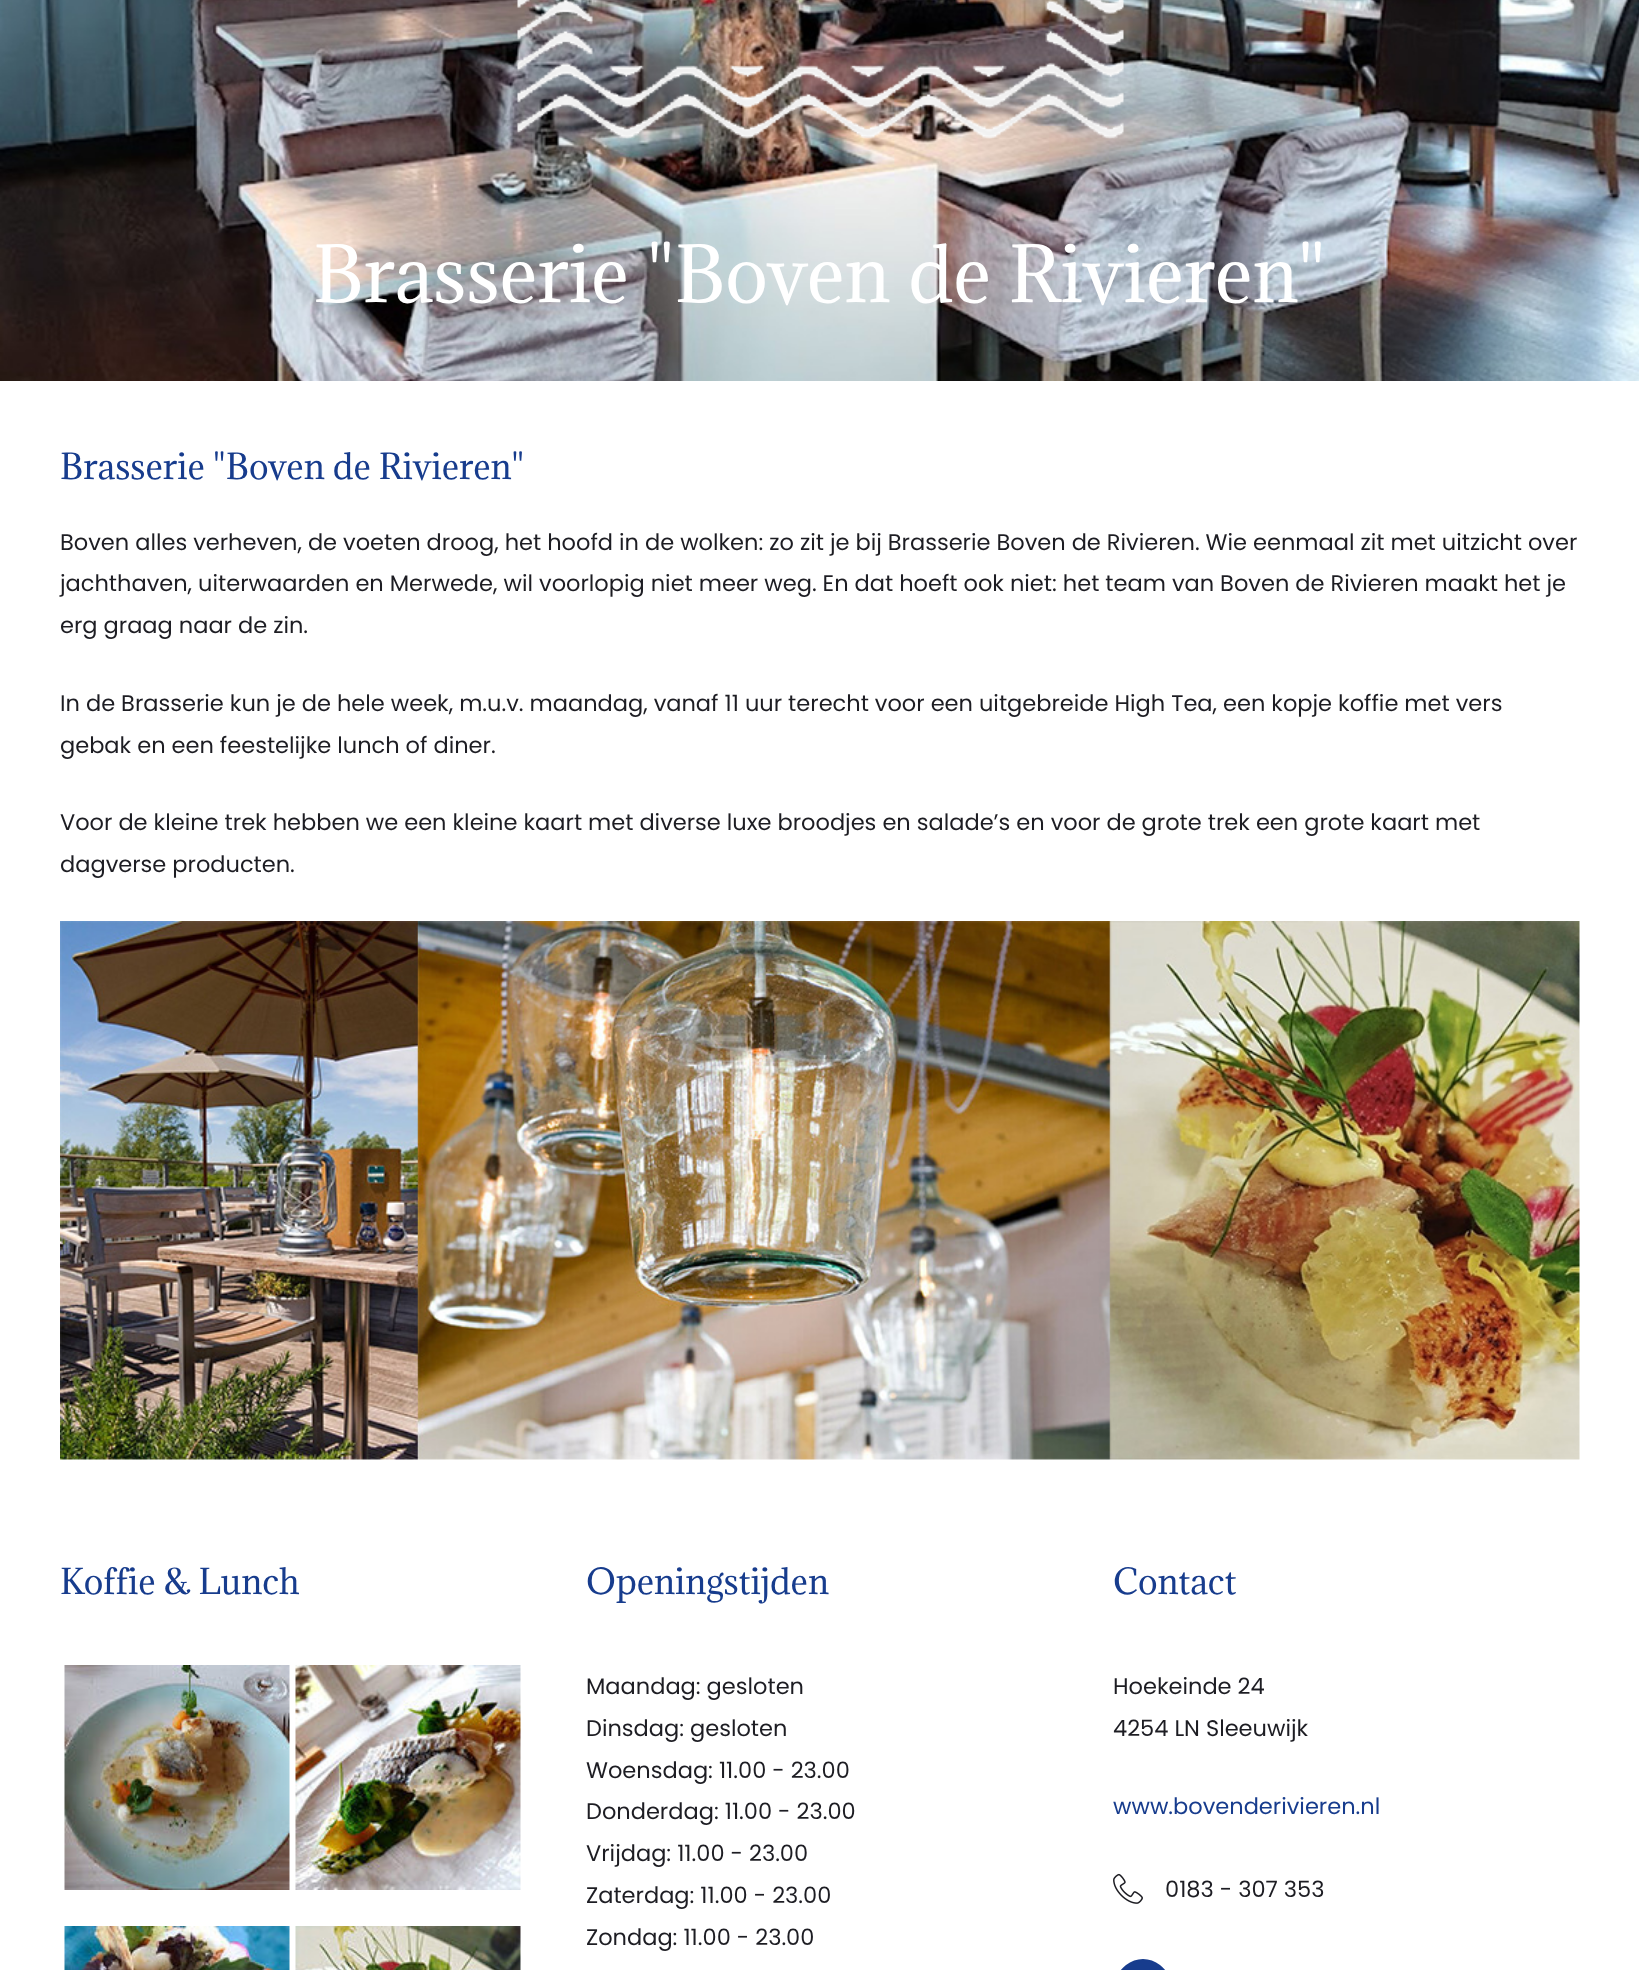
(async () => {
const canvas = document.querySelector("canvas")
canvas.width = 1639
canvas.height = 1970
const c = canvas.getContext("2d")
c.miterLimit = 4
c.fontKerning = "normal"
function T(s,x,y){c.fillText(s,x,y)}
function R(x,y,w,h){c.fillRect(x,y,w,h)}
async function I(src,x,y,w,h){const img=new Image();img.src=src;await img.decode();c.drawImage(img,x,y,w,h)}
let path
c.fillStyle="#fff"
R(0,0,1639,1970)
await I("1.png",0,0,1639,381)
await I("2.png",517,0,607,139)
c.font="72px Adamina"
T("Brasserie \"Boven de Rivieren\"",313,302)
c.font="33px Adamina"
c.fillStyle="#173c8d"
T("Brasserie \"Boven de Rivieren\"",60,479)
c.font="22.5px Poppins"
c.fillStyle="#1d1d23"
T("Boven alles verheven, de voeten droog, het hoofd in de wolken: zo zit je bij Brasserie Boven de Rivieren. Wie eenmaal zit met uitzicht over",60,550)
T("jachthaven, uiterwaarden en Merwede, wil voorlopig niet meer weg. En dat hoeft ook niet: het team van Boven de Rivieren maakt het je",60,591)
T("erg graag naar de zin.",60,633)
T("In de Brasserie kun je de hele week, m.u.v. maandag, vanaf 11 uur terecht voor een uitgebreide High Tea, een kopje koffie met vers",60,711)
T("gebak en een feestelijke lunch of diner.",60,753)
T("Voor de kleine trek hebben we een kleine kaart met diverse luxe broodjes en salade’s en voor de grote trek een grote kaart met",60,830)
T("dagverse producten.",60,872)
await I("3.png",60,921,1520,539)
c.font="33px Adamina"
c.fillStyle="#173c8d"
T("Koffie & Lunch",60,1594)
await I("4.png",64,1665,226,225)
await I("5.png",295,1665,226,225)
await I("6.png",64,1926,226,44)
await I("7.png",295,1926,226,44)
T("Openingstijden",586,1594)
c.font="22.5px Poppins"
c.fillStyle="#1d1d23"
T("Maandag: gesloten",586,1694)
T("Dinsdag: gesloten",586,1736)
T("Woensdag: 11.00 - 23.00",586,1778)
T("Donderdag: 11.00 - 23.00",586,1819)
T("Vrijdag: 11.00 - 23.00",586,1861)
T("Zaterdag: 11.00 - 23.00",586,1903)
T("Zondag: 11.00 - 23.00",586,1945)
c.font="33px Adamina"
c.fillStyle="#173c8d"
T("Contact",1113,1594)
c.font="22.5px Poppins"
c.fillStyle="#1d1d23"
T("Hoekeinde 24",1113,1694)
T("4254 LN Sleeuwijk",1113,1736)
c.fillStyle="#173c8d"
T("www.bovenderivieren.nl",1113,1814)
await I("8.png",1113,1873,30,31)
c.fillStyle="#1d1d23"
T("0183 - 307 353",1165,1897)
c.fillStyle="#173c8d"
path = new Path2D("M1143 1959c-6 0-12 2-17 6c-22 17-10 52 17 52c27 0 39-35 17-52c-5-4-11-6-17-6zm7 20c-6 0-6-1-6 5h6l-1 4h-5v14h-5v-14h-4v-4h4c0-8 3-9 11-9z")
c.fill(path)
})()
